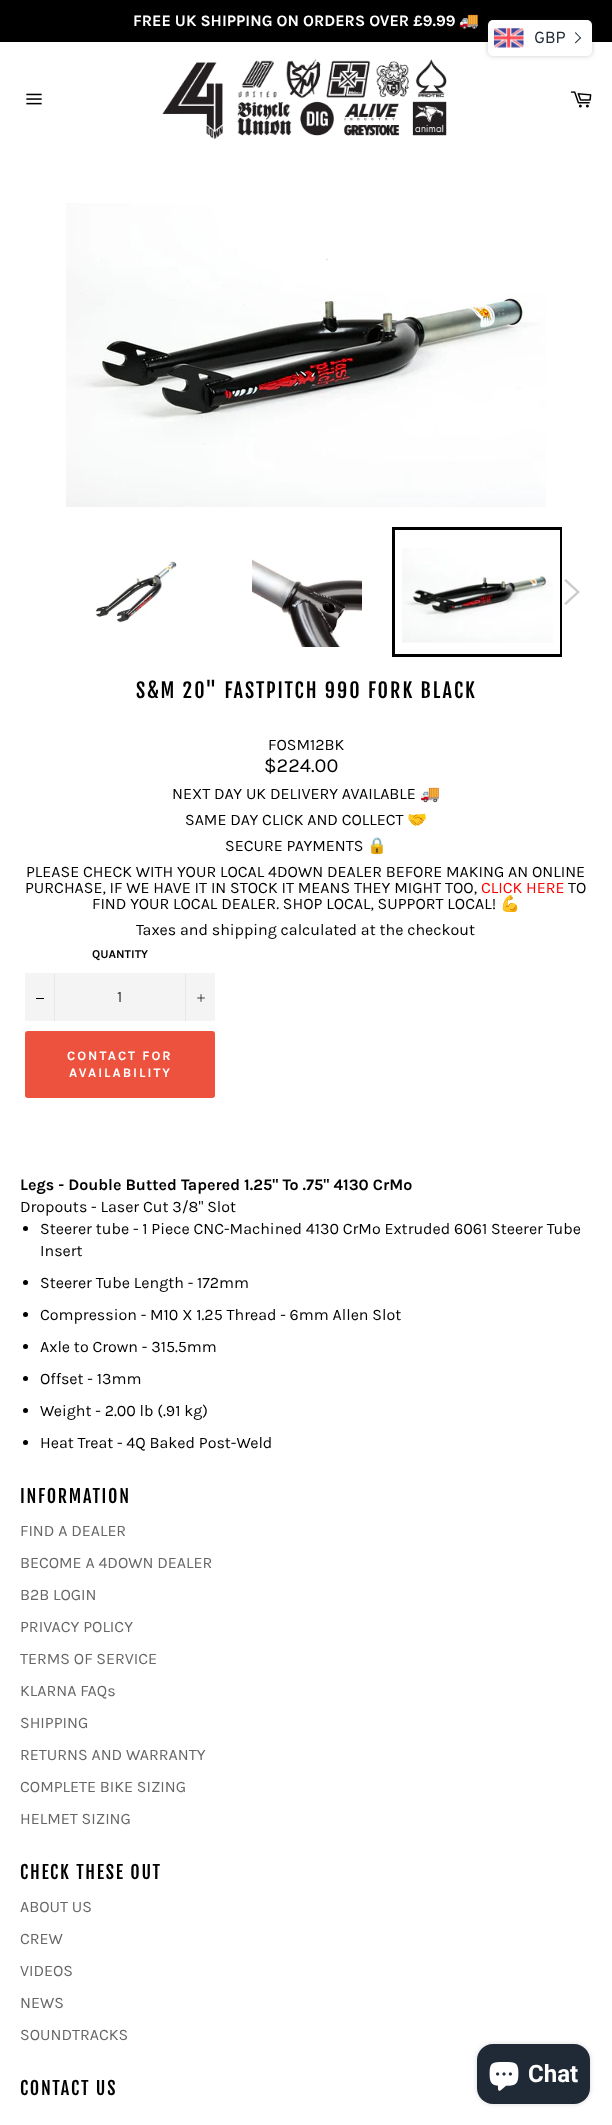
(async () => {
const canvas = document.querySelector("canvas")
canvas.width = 612
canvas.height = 2125
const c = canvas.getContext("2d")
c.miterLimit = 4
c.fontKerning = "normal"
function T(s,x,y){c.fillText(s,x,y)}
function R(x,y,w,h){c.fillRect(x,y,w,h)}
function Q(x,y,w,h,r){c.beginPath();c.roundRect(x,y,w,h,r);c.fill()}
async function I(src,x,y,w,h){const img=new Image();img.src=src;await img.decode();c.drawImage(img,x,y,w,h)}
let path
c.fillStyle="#fff"
R(0,0,612,2125)
c.fillStyle="#000"
R(0,0,612,42)
c.font="bold 16px Karla"
c.fillStyle="#fff"
T("FREE UK SHIPPING ON ORDERS OVER £9.99",133,26)
c.font="bold 16px Noto Color Emoji"
T("🚚",459,26)
await I("1.png",26,93,16,12)
await I("2.png",162,59,285,80)
await I("3.png",570,91,22,17)
c.fillStyle="#212b3640"
c.filter="blur(2.5px)"
c.beginPath()
c.roundRect(488,20,104,36,5)
c.fill()
c.filter="none"
c.fillStyle="#fff"
Q(488,20,104,36,5)
await I("4.png",494,28,30,20)
c.font="16px Overpass"
c.fillStyle="#212b36"
T("GBP",534,43)
path = new Path2D("M575 33l.5-1l5.5 6l-.5 .5z")
c.fill(path)
path = new Path2D("M575 42.5l5.5-5.5l.5 1l-5.5 5.5z")
c.fill(path)
await I("5.png",66,203,480,304)
await I("6.png",95,559,82,64)
await I("7.png",252,559,110,88)
await I("8.png",402,548,151,95)
c.save()
c.beginPath()
c.rect(50,527,512,130)
c.clip()
c.strokeStyle="#000"
c.lineWidth=3
c.strokeRect(393.5,528.5,168,127)
c.restore()
c.fillStyle="#ccc"
path = new Path2D("M564 580.5l2-1.5l14 13l-14 13l-2-1.5l12.5-11.5z")
c.fill(path)
c.letterSpacing="2px"
c.font="20px Fjalla One"
c.fillStyle="#000"
T("S&M 20\" FASTPITCH 990 FORK BLACK",136,698)
c.letterSpacing="0px"
c.font="16px Karla"
T("FOSM12BK",268,750)
c.font="20px Karla"
T("$224.00",264,772)
c.font="16px Karla"
T("NEXT DAY UK DELIVERY AVAILABLE",172,799)
c.font="16px Noto Color Emoji"
T("🚚",420,799)
c.font="16px Karla"
T("SAME DAY CLICK AND COLLECT",185,825)
c.font="16px Noto Color Emoji"
T("🤝",407,825)
c.font="16px Karla"
T("SECURE PAYMENTS",225,851)
c.font="16px Noto Color Emoji"
T("🔒",367,851)
c.font="16px Karla"
T("PLEASE CHECK WITH YOUR LOCAL 4DOWN DEALER BEFORE MAKING AN ONLINE",26,877)
T("PURCHASE, IF WE HAVE IT IN STOCK IT MEANS THEY MIGHT TOO,",25,893)
T("TO",568,893)
T("FIND YOUR LOCAL DEALER. SHOP LOCAL, SUPPORT LOCAL!",92,909)
c.font="16px Noto Color Emoji"
T("💪",500,909)
c.font="16px Karla"
T("Taxes and shipping calculated at the checkout",136,935)
c.font="bold 12px Karla"
T("QUANTITY",92,958)
c.fillStyle="#f4f4f4"
R(25,973,190,48)
c.fillStyle="#e7e7e7"
R(54,973,1,48)
c.fillStyle="#000"
R(36,998,8,1)
c.font="16px Karla"
c.fillStyle="#333"
T("1",117,1002)
c.fillStyle="#e7e7e7"
R(185,973,1,48)
await I("9.png",197,994,8,8)
c.fillStyle="#ec523e"
Q(25,1031,190,67,3)
c.letterSpacing="2px"
c.font="bold 13px Karla"
c.fillStyle="#fff"
T("CONTACT FOR",67,1060)
T("AVAILABILITY",69,1077)
c.letterSpacing="0px"
c.font="16px Karla"
c.fillStyle="#f00"
T("CLICK HERE",481,893)
c.font="bold 16px Karla"
c.fillStyle="#000"
T("Legs - Double Butted Tapered 1.25\" To .75\" 4130 CrMo",20,1190)
c.font="16px Karla"
T("Dropouts - Laser Cut 3/8\" Slot",20,1212)
c.beginPath()
c.arc(25.5,1228.5,2.5,0,7)
c.fill()
T("Steerer tube - 1 Piece CNC-Machined 4130 CrMo Extruded 6061 Steerer Tube",40,1234)
T("Insert",40,1256)
c.beginPath()
c.arc(25.5,1282.5,2.5,0,7)
c.fill()
T("Steerer Tube Length - 172mm",40,1288)
c.beginPath()
c.arc(25.5,1314.5,2.5,0,7)
c.fill()
T("Compression - M10 X 1.25 Thread - 6mm Allen Slot",40,1320)
c.beginPath()
c.arc(25.5,1346.5,2.5,0,7)
c.fill()
T("Axle to Crown - 315.5mm",40,1352)
c.beginPath()
c.arc(25.5,1378.5,2.5,0,7)
c.fill()
T("Offset - 13mm",40,1384)
c.beginPath()
c.arc(25.5,1410.5,2.5,0,7)
c.fill()
T("Weight - 2.00 lb (.91 kg)",40,1416)
c.beginPath()
c.arc(25.5,1442.5,2.5,0,7)
c.fill()
T("Heat Treat - 4Q Baked Post-Weld",40,1448)
c.letterSpacing="1.75px"
c.font="18px Fjalla One"
T("INFORMATION",20,1503)
c.letterSpacing="0px"
c.font="16px Karla"
c.fillStyle="#666"
T("FIND A DEALER",20,1536)
T("BECOME A 4DOWN DEALER",20,1568)
T("B2B LOGIN",20,1600)
T("PRIVACY POLICY",20,1632)
T("TERMS OF SERVICE",20,1664)
T("KLARNA FAQs",20,1696)
T("SHIPPING",20,1728)
T("RETURNS AND WARRANTY",20,1760)
T("COMPLETE BIKE SIZING",20,1792)
T("HELMET SIZING",20,1824)
c.letterSpacing="1.75px"
c.font="18px Fjalla One"
c.fillStyle="#000"
T("CHECK THESE OUT",20,1879)
c.letterSpacing="0px"
c.font="16px Karla"
c.fillStyle="#666"
T("ABOUT US",20,1912)
T("CREW",20,1944)
T("VIDEOS",20,1976)
T("NEWS",20,2008)
T("SOUNDTRACKS",20,2040)
c.letterSpacing="1.75px"
c.font="18px Fjalla One"
c.fillStyle="#000"
T("CONTACT US",20,2095)
c.fillStyle="#00000026"
c.filter="blur(2.5px)"
c.beginPath()
c.roundRect(477,2044,113,60,16)
c.fill()
c.filter="none"
c.fillStyle="#202a36"
Q(477,2044,113,60,16)
await I("10.png",489,2062,30,29)
c.letterSpacing="0px"
c.font="bold 24px Roboto"
c.fillStyle="#fff"
T("Chat",528,2082)
})()
